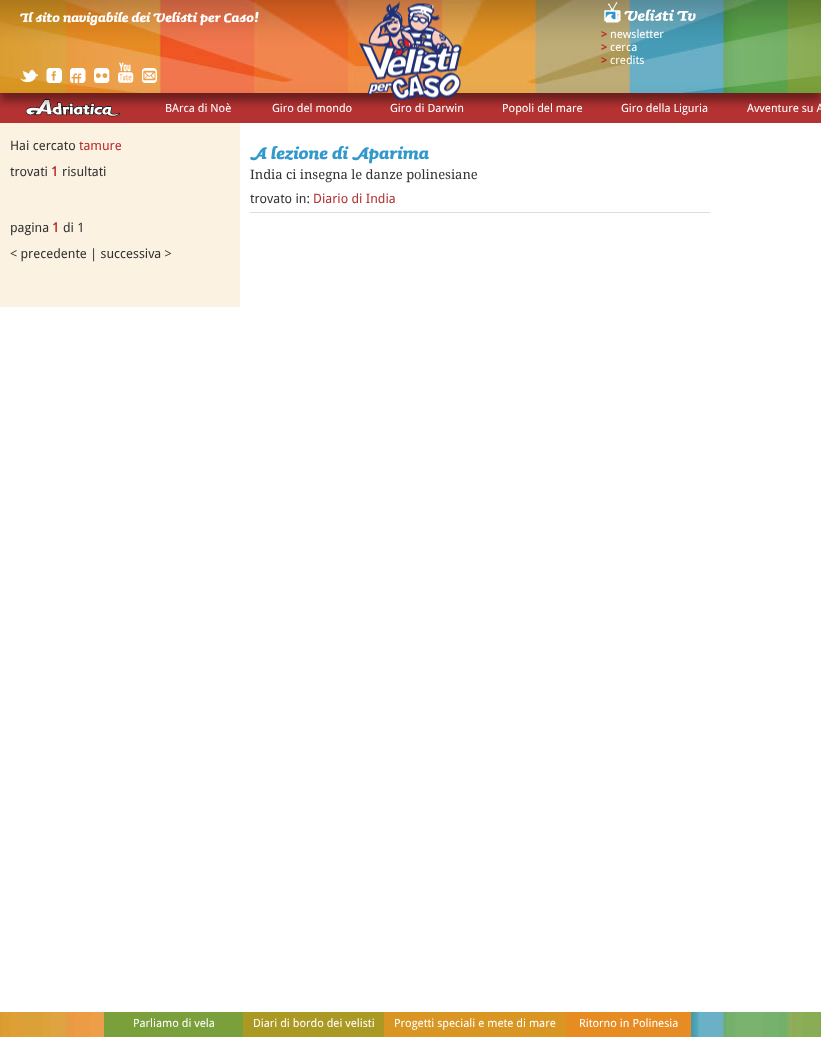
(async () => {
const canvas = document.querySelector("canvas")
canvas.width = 821
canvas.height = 1037
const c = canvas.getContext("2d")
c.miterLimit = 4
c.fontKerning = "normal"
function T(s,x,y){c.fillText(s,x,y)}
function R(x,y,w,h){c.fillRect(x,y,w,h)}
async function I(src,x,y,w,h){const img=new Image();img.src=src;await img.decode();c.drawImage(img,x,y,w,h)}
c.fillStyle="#fff"
R(0,0,821,1037)
await I("1.png",0,0,821,93)
c.fillStyle="#b43232"
R(0,93,821,30)
await I("10.png",25,99,95,18)
c.save()
c.beginPath()
c.rect(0,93,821,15)
c.clip()
c.fillStyle="#00000066"
c.filter="blur(4px)"
c.beginPath()
c.rect(0,8,821,93)
c.fill()
c.filter="none"
c.restore()
c.font="italic bold 15.9px 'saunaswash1'"
c.fillStyle="#fff"
T("Il sito navigabile dei Velisti per Caso!",20,22)
await I("2.png",359,1,103,99)
await I("3.png",604,2,92,21)
c.font="bold 11.4px 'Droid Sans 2'"
c.fillStyle="#b62c30"
T(">",601,38)
c.font="11.4px Droid Sans"
c.fillStyle="#fff"
T("newsletter",610,38)
c.font="bold 11.4px 'Droid Sans 2'"
c.fillStyle="#b62c30"
T(">",601,51)
c.font="11.4px Droid Sans"
c.fillStyle="#fff"
T("cerca",610,51)
c.font="bold 11.4px 'Droid Sans 2'"
c.fillStyle="#b62c30"
T(">",601,64)
c.font="11.4px Droid Sans"
c.fillStyle="#fff"
T("credits",610,64)
await I("4.png",20,69,18,13)
await I("5.png",46,68,16,15)
await I("6.png",70,68,16,15)
await I("7.png",94,68,16,15)
await I("8.png",118,62,16,21)
await I("9.png",142,68,15,15)
T("BArca di Noè",165,112)
T("Giro del mondo",272,112)
T("Giro di Darwin",390,112)
T("Popoli del mare",502,112)
T("Giro della Liguria",621,112)
T("Avventure su A",747,112)
c.fillStyle="#fbf2e1"
R(0,123,240,184)
c.font="13px Droid Sans"
c.fillStyle="#333"
T("Hai cercato",10,150)
c.fillStyle="#b62c30"
T("tamure",79,150)
c.fillStyle="#333"
T("trovati",10,176)
c.font="bold 13px Droid Sans"
c.fillStyle="#b62c30"
T("1",51,176)
c.font="13px Droid Sans"
c.fillStyle="#333"
T("risultati",62,176)
T("pagina",10,232)
c.font="bold 13px Droid Sans"
c.fillStyle="#b62c30"
T("1",52,232)
c.font="13px Droid Sans"
c.fillStyle="#333"
T("di 1",63,232)
T("< precedente | successiva >",10,258)
c.font="italic bold 20.75px 'saunaswash1'"
c.fillStyle="#39c"
T("A lezione di Aparima",250,159)
c.font="13px Droid Serif"
c.fillStyle="#333"
T("India ci insegna le danze polinesiane",250,179)
c.fillStyle="#ddd"
R(250,212,460,1)
c.font="13px Droid Sans"
c.fillStyle="#333"
T("trovato in:",250,203)
c.fillStyle="#b43232"
T("Diario di India",313,203)
await I("11.png",0,1012,821,25)
c.fillStyle="#7aa03c"
R(104,1012,139,25)
c.font="11.4px Droid Sans"
c.fillStyle="#fff"
T("Parliamo di vela",133,1027)
c.fillStyle="#aa9923"
R(243,1012,141,25)
c.fillStyle="#fff"
T("Diari di bordo dei velisti",253,1027)
c.fillStyle="#d99623"
R(384,1012,182,25)
c.fillStyle="#fff"
T("Progetti speciali e mete di mare",394,1027)
c.fillStyle="#e78b23"
R(566,1012,125,25)
c.fillStyle="#fff"
T("Ritorno in Polinesia",579,1027)
})()
